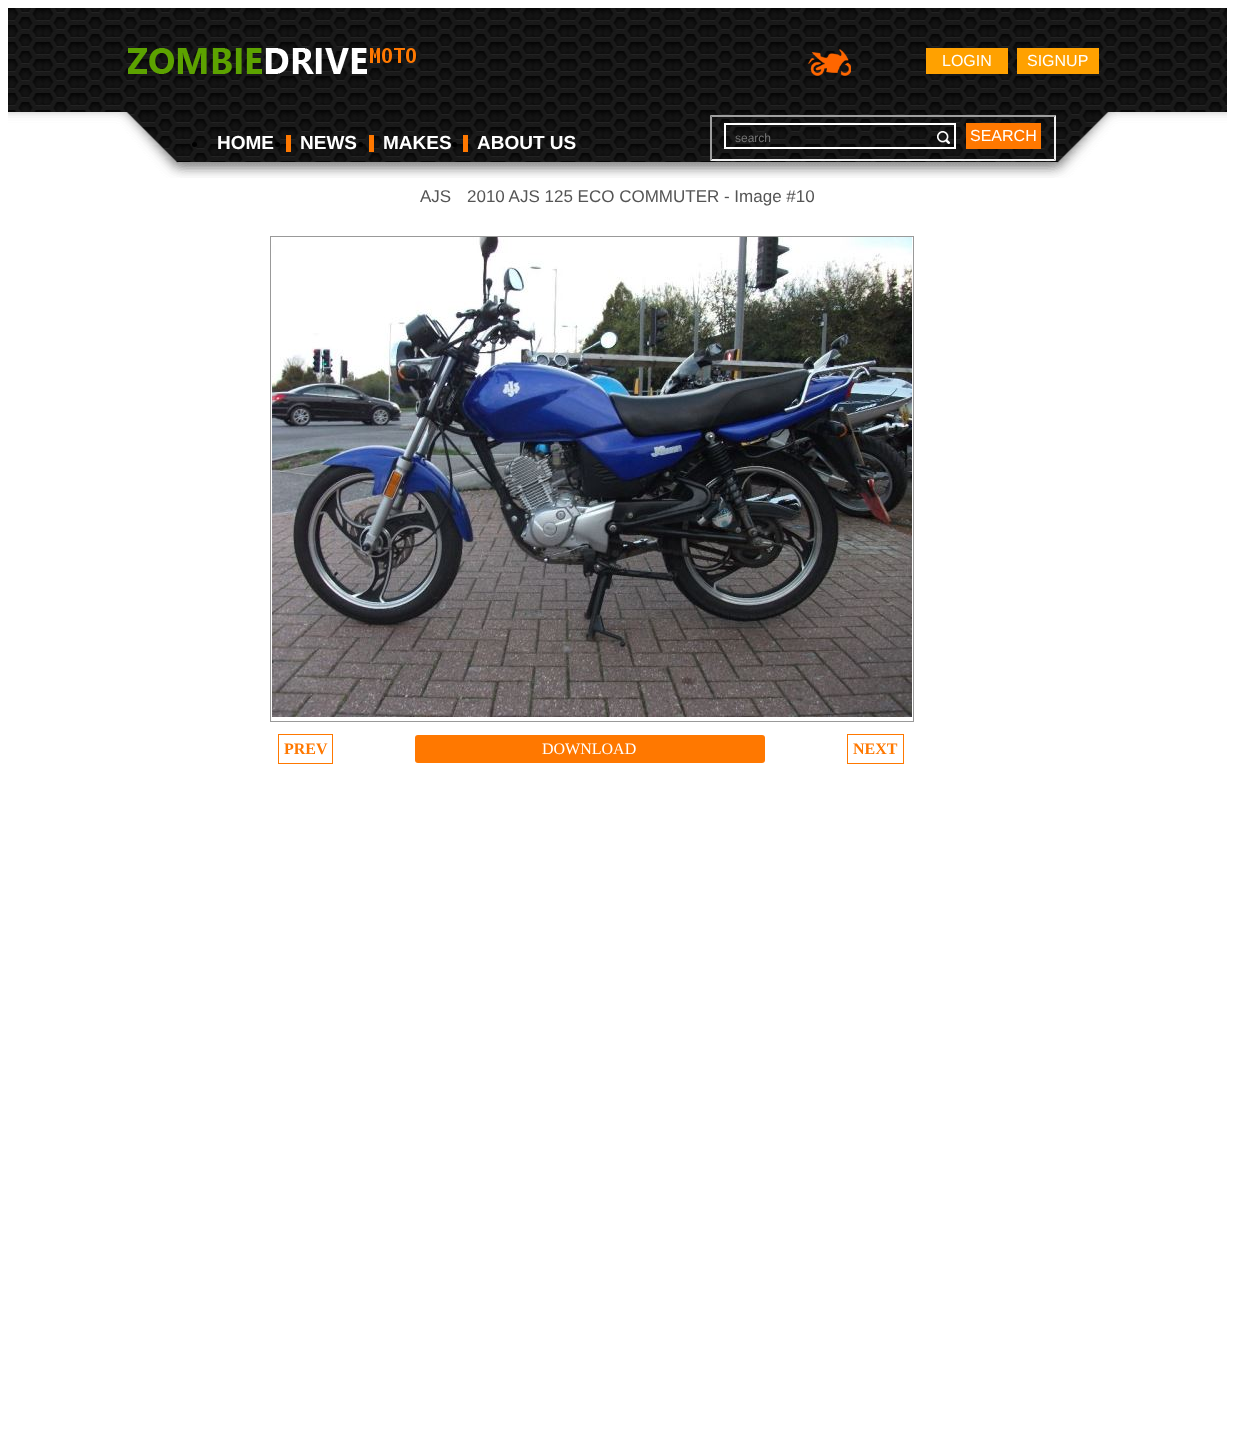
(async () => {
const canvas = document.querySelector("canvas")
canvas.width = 1235
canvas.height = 1447
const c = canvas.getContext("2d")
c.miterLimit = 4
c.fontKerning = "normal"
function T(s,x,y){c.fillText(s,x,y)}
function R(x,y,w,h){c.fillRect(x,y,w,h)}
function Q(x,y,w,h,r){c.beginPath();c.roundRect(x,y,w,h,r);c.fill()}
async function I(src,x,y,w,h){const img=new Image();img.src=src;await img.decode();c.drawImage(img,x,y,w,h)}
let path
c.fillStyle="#fff"
R(0,0,1235,1447)
await I("1.png",8,8,1219,170)
await I("2.png",128,48,288,26)
await I("3.png",808,49,43,27)
c.fillStyle="#ffa100"
R(926,48,82,26)
c.font="16px Liberation Sans"
c.fillStyle="#fff"
T("LOGIN",942,66)
c.fillStyle="#ffa100"
R(1017,48,82,26)
c.fillStyle="#fff"
T("SIGNUP",1027,66)
c.fillStyle="#000"
c.beginPath()
c.arc(194.5,144.5,2.5,0,7)
c.fill()
c.font="bold 19px Liberation Sans"
c.fillStyle="#fff"
T("HOME",217,149)
c.fillStyle="#ff7800"
R(286,135,5,17)
c.fillStyle="#000"
c.beginPath()
c.arc(277.5,144.5,2.5,0,7)
c.fill()
c.fillStyle="#fff"
T("NEWS",300,149)
c.fillStyle="#ff7800"
R(369,135,5,17)
c.fillStyle="#000"
c.beginPath()
c.arc(360.5,144.5,2.5,0,7)
c.fill()
c.fillStyle="#fff"
T("MAKES",383,149)
c.fillStyle="#ff7800"
R(463,135,5,17)
c.fillStyle="#000"
c.beginPath()
c.arc(454.5,144.5,2.5,0,7)
c.fill()
c.fillStyle="#fff"
T("ABOUT US",477,149)
c.fillStyle="#9f9f9f"
path = new Path2D("M710 115h346l-2 2h-342z")
c.fill(path)
c.fillStyle="#efefef"
path = new Path2D("M1056 115v46l-2-2v-42z")
c.fill(path)
path = new Path2D("M1056 161h-346l2-2h342z")
c.fill(path)
c.fillStyle="#9f9f9f"
path = new Path2D("M710 161v-46l2 2v42z")
c.fill(path)
c.strokeStyle="#fff"
c.lineWidth=2
c.strokeRect(725,124,230,24)
await I("4.png",937,131,13,13)
c.font="12px Liberation Sans"
c.fillStyle="#757575"
T("search",735,142)
c.fillStyle="#ff7800"
R(966,123,75,26)
c.font="16px Liberation Sans"
c.fillStyle="#fff"
T("SEARCH",970,141)
c.font="17px Liberation Sans"
c.fillStyle="#555"
T("AJS",420,202)
T("2010 AJS 125 ECO COMMUTER - Image #10",467,202)
c.strokeStyle="#999"
c.lineWidth=1
c.strokeRect(270.5,236.5,643,485)
await I("5.png",272,237,640,480)
c.strokeStyle="#ff7800"
c.strokeRect(278.5,734.5,54,29)
c.font="bold 16px Liberation Serif"
c.fillStyle="#ff7800"
T("PREV",284,754)
Q(415,735,350,28,3)
c.font="16px Liberation Serif"
c.fillStyle="#fff"
T("DOWNLOAD",542,754)
c.strokeRect(847.5,734.5,56,29)
c.font="bold 16px Liberation Serif"
c.fillStyle="#ff7800"
T("NEXT",853,754)
})()
